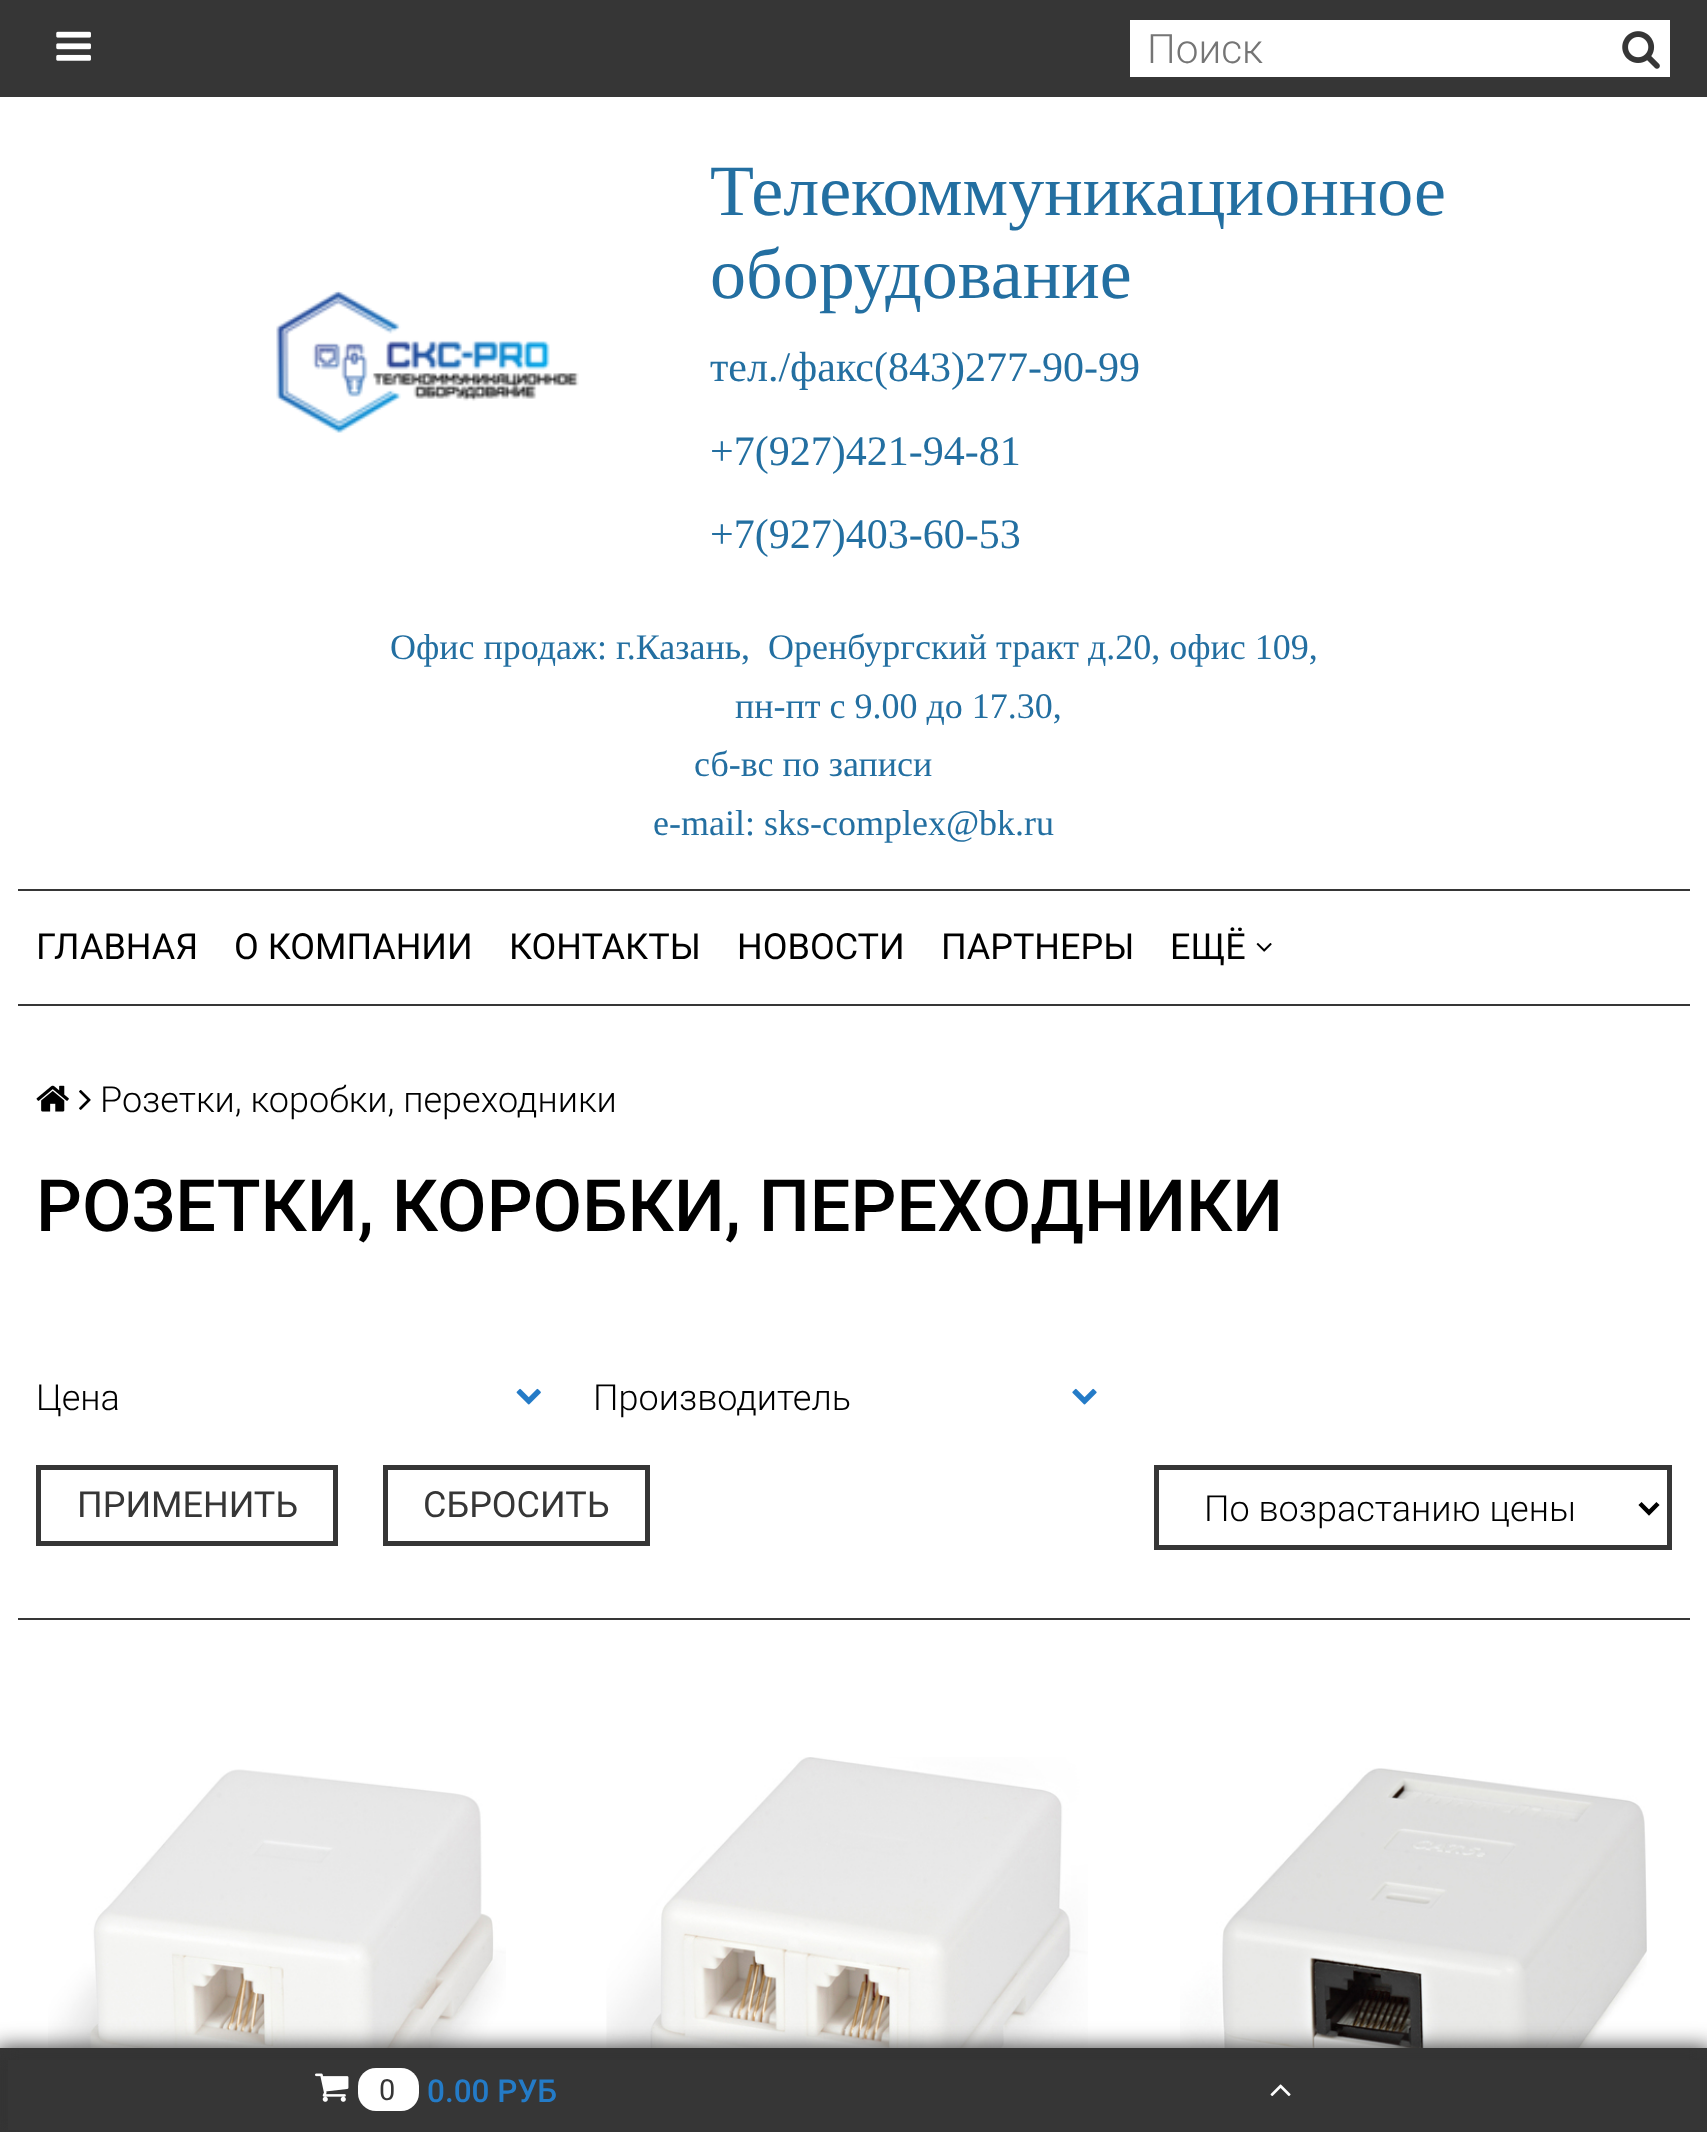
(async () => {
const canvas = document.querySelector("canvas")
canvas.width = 1707
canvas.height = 2132
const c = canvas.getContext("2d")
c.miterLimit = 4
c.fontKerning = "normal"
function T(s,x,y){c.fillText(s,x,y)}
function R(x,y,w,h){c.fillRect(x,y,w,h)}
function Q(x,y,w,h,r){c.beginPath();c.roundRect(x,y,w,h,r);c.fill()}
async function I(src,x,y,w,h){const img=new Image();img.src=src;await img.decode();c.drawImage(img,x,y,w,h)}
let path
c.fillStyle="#363636"
R(0,0,1707,2132)
await I("1.png",56,31,35,30)
c.fillStyle="#fff"
R(1130,20,540,57)
c.font="300 40.5px Roboto"
c.fillStyle="#757575"
T("Поиск",1147,63)
await I("2.png",1622,31,38,38)
c.fillStyle="#fff"
R(0,97,1707,1951)
await I("3.png",276,290,303,143)
c.font="72px Liberation Serif"
c.fillStyle="#236fa1"
T("Телекоммуникационное",710,215)
T("оборудование",710,298)
c.font="42px Liberation Serif"
T("тел./факс(843)277-90-99",710,381)
T("+7(927)421-94-81",710,465)
T("+7(927)403-60-53",710,548)
c.font="36px Liberation Serif"
T("Офис продаж: г.Казань,  Оренбургский тракт д.20, офис 109,",390,659)
T("пн-пт с 9.00 до 17.30,",735,718)
T("сб-вс по записи",694,776)
T("e-mail: sks-complex@bk.ru",653,835)
c.fillStyle="#363636"
R(18,889,1672,2)
R(18,1004,1672,2)
c.font="36px Roboto"
c.fillStyle="#000"
T("ГЛАВНАЯ",36,959)
T("О КОМПАНИИ",234,959)
T("КОНТАКТЫ",509,959)
T("НОВОСТИ",737,959)
T("ПАРТНЕРЫ",941,959)
T("ЕЩЁ",1170,959)
await I("4.png",1256,943,16,9)
await I("5.png",36,1085,33,27)
await I("6.png",79,1090,12,20)
c.font="300 36px Roboto"
T("Розетки, коробки, переходники",100,1112)
c.font="500 72px Roboto"
T("РОЗЕТКИ, КОРОБКИ, ПЕРЕХОДНИКИ",36,1231)
c.fillStyle="#363636"
R(18,1618,1672,2)
c.font="300 36px Roboto"
c.fillStyle="#000"
T("Цена",36,1410)
await I("7.png",516,1388,25,17)
T("Производитель",593,1410)
await I("8.png",1072,1388,25,17)
c.strokeStyle="#363636"
c.lineWidth=5
c.strokeRect(38.5,1467.5,297,76)
c.font="36px Roboto"
c.fillStyle="#363636"
T("ПРИМЕНИТЬ",77,1517)
c.strokeRect(385.5,1467.5,262,76)
T("СБРОСИТЬ",423,1517)
c.strokeRect(1156.5,1467.5,513,80)
path = new Path2D("M1640 1503.5l9 9l9-9")
c.strokeStyle="#000"
c.lineWidth=4.5
c.stroke(path)
c.font="300 36px Roboto"
c.fillStyle="#000"
T("По возрастанию цены",1204,1521)
await I("9.png",48,1769,458,279)
await I("10.png",606,1757,482,291)
await I("11.png",1180,1768,467,280)
c.fillStyle="#333"
c.filter="blur(11px)"
c.beginPath()
c.rect(-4,2048,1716,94)
c.fill()
c.filter="none"
c.fillStyle="#363636"
R(8,2060,1692,70)
await I("12.png",315,2073,34,29)
c.fillStyle="#fff"
Q(358,2068,61,43,18)
c.font="29px Roboto"
c.fillStyle="#363636"
T("0",379,2100)
c.font="500 31.5px Roboto"
c.fillStyle="#247bc7"
T("0.00 РУБ",427,2102)
await I("13.png",1270,2084,21,12)
})()
